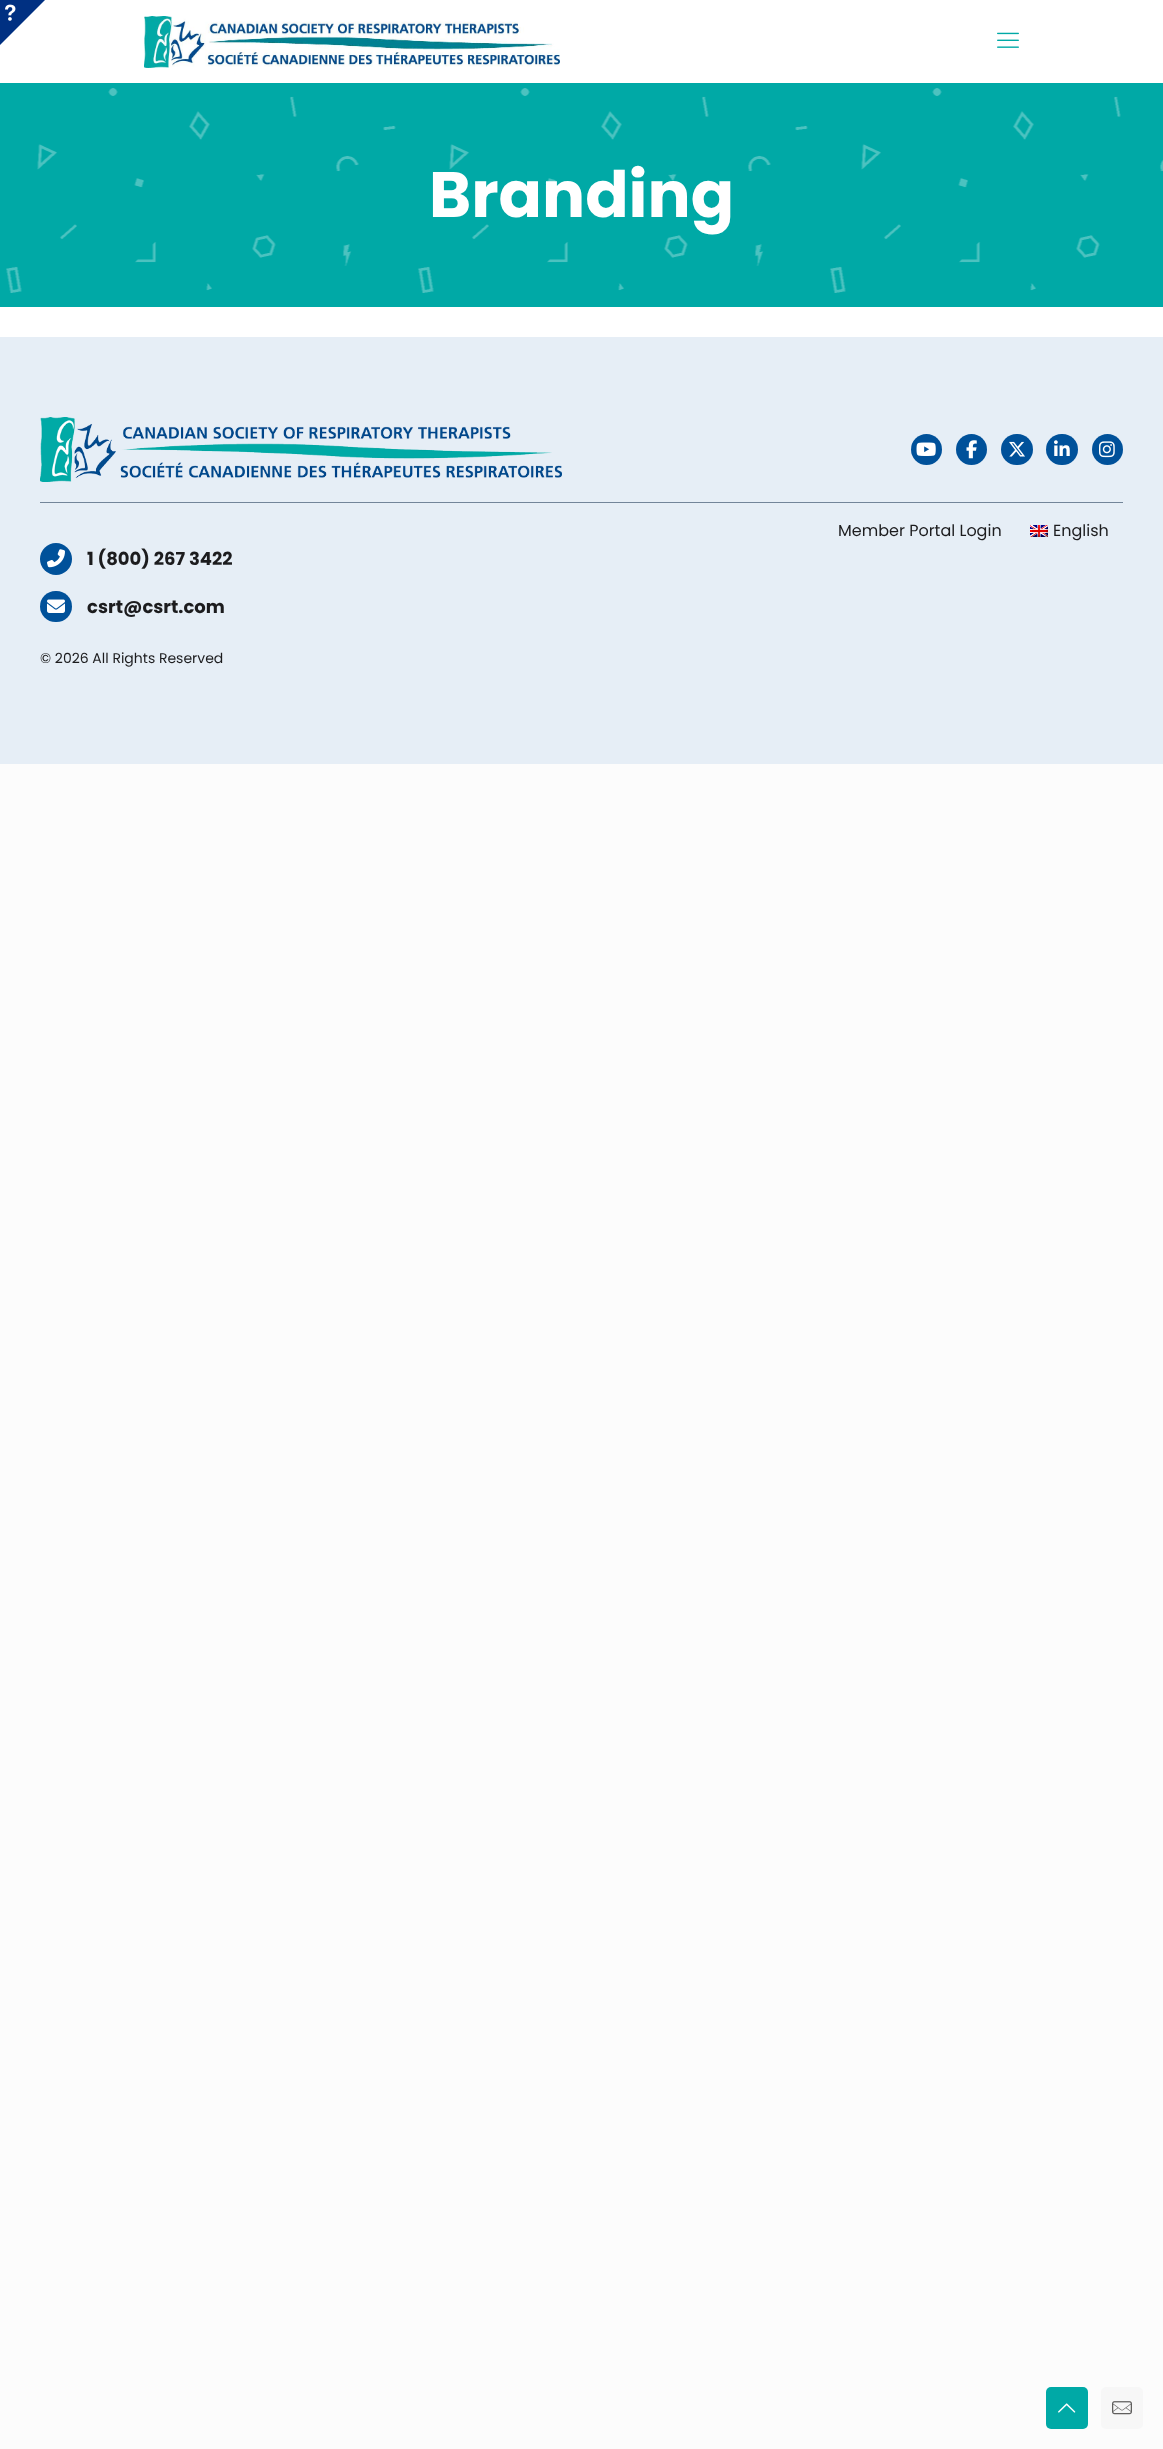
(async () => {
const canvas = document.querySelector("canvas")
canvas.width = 1163
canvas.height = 2449
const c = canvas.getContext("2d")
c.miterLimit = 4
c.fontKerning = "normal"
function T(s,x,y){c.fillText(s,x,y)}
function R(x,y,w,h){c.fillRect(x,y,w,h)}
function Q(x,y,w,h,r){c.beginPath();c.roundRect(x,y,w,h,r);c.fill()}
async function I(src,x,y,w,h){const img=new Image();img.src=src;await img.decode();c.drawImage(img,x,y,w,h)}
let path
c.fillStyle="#fcfcfc"
R(0,0,1163,2449)
c.fillStyle="#fff"
R(0,0,1163,83)
c.fillStyle="#003082"
path = new Path2D("M0 0h45l-45 45z")
c.fill(path)
await I("1.png",5,4,11,17)
c.fillStyle="#fff"
R(0,307,1163,30)
c.fillStyle="#00a9a6"
R(0,83,1163,224)
await I("2.png",144,16,416,52)
await I("3.png",997,32,22,16)
await I("4.png",6,88,1157,205)
c.font="bold 64px Poppins"
c.fillStyle="#fff"
T("Branding",429,217)
c.fillStyle="#e6eef6"
R(0,337,1163,427)
await I("5.png",40,417,522,65)
c.fillStyle="#00519a"
c.beginPath()
c.arc(926.5,449.5,15.5,0,7)
c.fill()
await I("6.png",916,442,20,14)
c.beginPath()
c.arc(971.5,449.5,15.5,0,7)
c.fill()
await I("7.png",966,440,11,19)
Q(1001,434,32,31,15.5)
await I("8.png",1009,441,16,16)
Q(1046,434,32,31,15.5)
await I("9.png",1054,440,16,16)
c.beginPath()
c.arc(1107.5,449.5,15.5,0,7)
c.fill()
await I("10.png",1099,441,16,17)
c.fillStyle="#738599"
R(40,502,1083,1)
c.font="16px Poppins"
c.fillStyle="#1c1c1e"
T("Member Portal Login",838,536)
await I("11.png",1030,525,18,12)
T("English",1053,536)
c.fillStyle="#00519a"
c.beginPath()
c.arc(56,559,16,0,7)
c.fill()
await I("12.png",47,549,18,19)
c.font="bold 18px Poppins"
c.fillStyle="#1c1c1e"
T("1 (800) 267 3422",87,565)
c.fillStyle="#00519a"
Q(40,591,32,31,15.5)
await I("13.png",47,599,18,14)
c.fillStyle="#1c1c1e"
T("csrt@csrt.com",87,613)
c.font="14px Poppins"
T("© 2026 All Rights Reserved",40,663)
c.fillStyle="#00a9a6"
Q(1046,2387,42,42,5)
await I("14.png",1058,2403,18,10)
c.fillStyle="#f7f7f7"
Q(1101,2387,42,42,5)
await I("15.png",1112,2401,20,14)
})()
